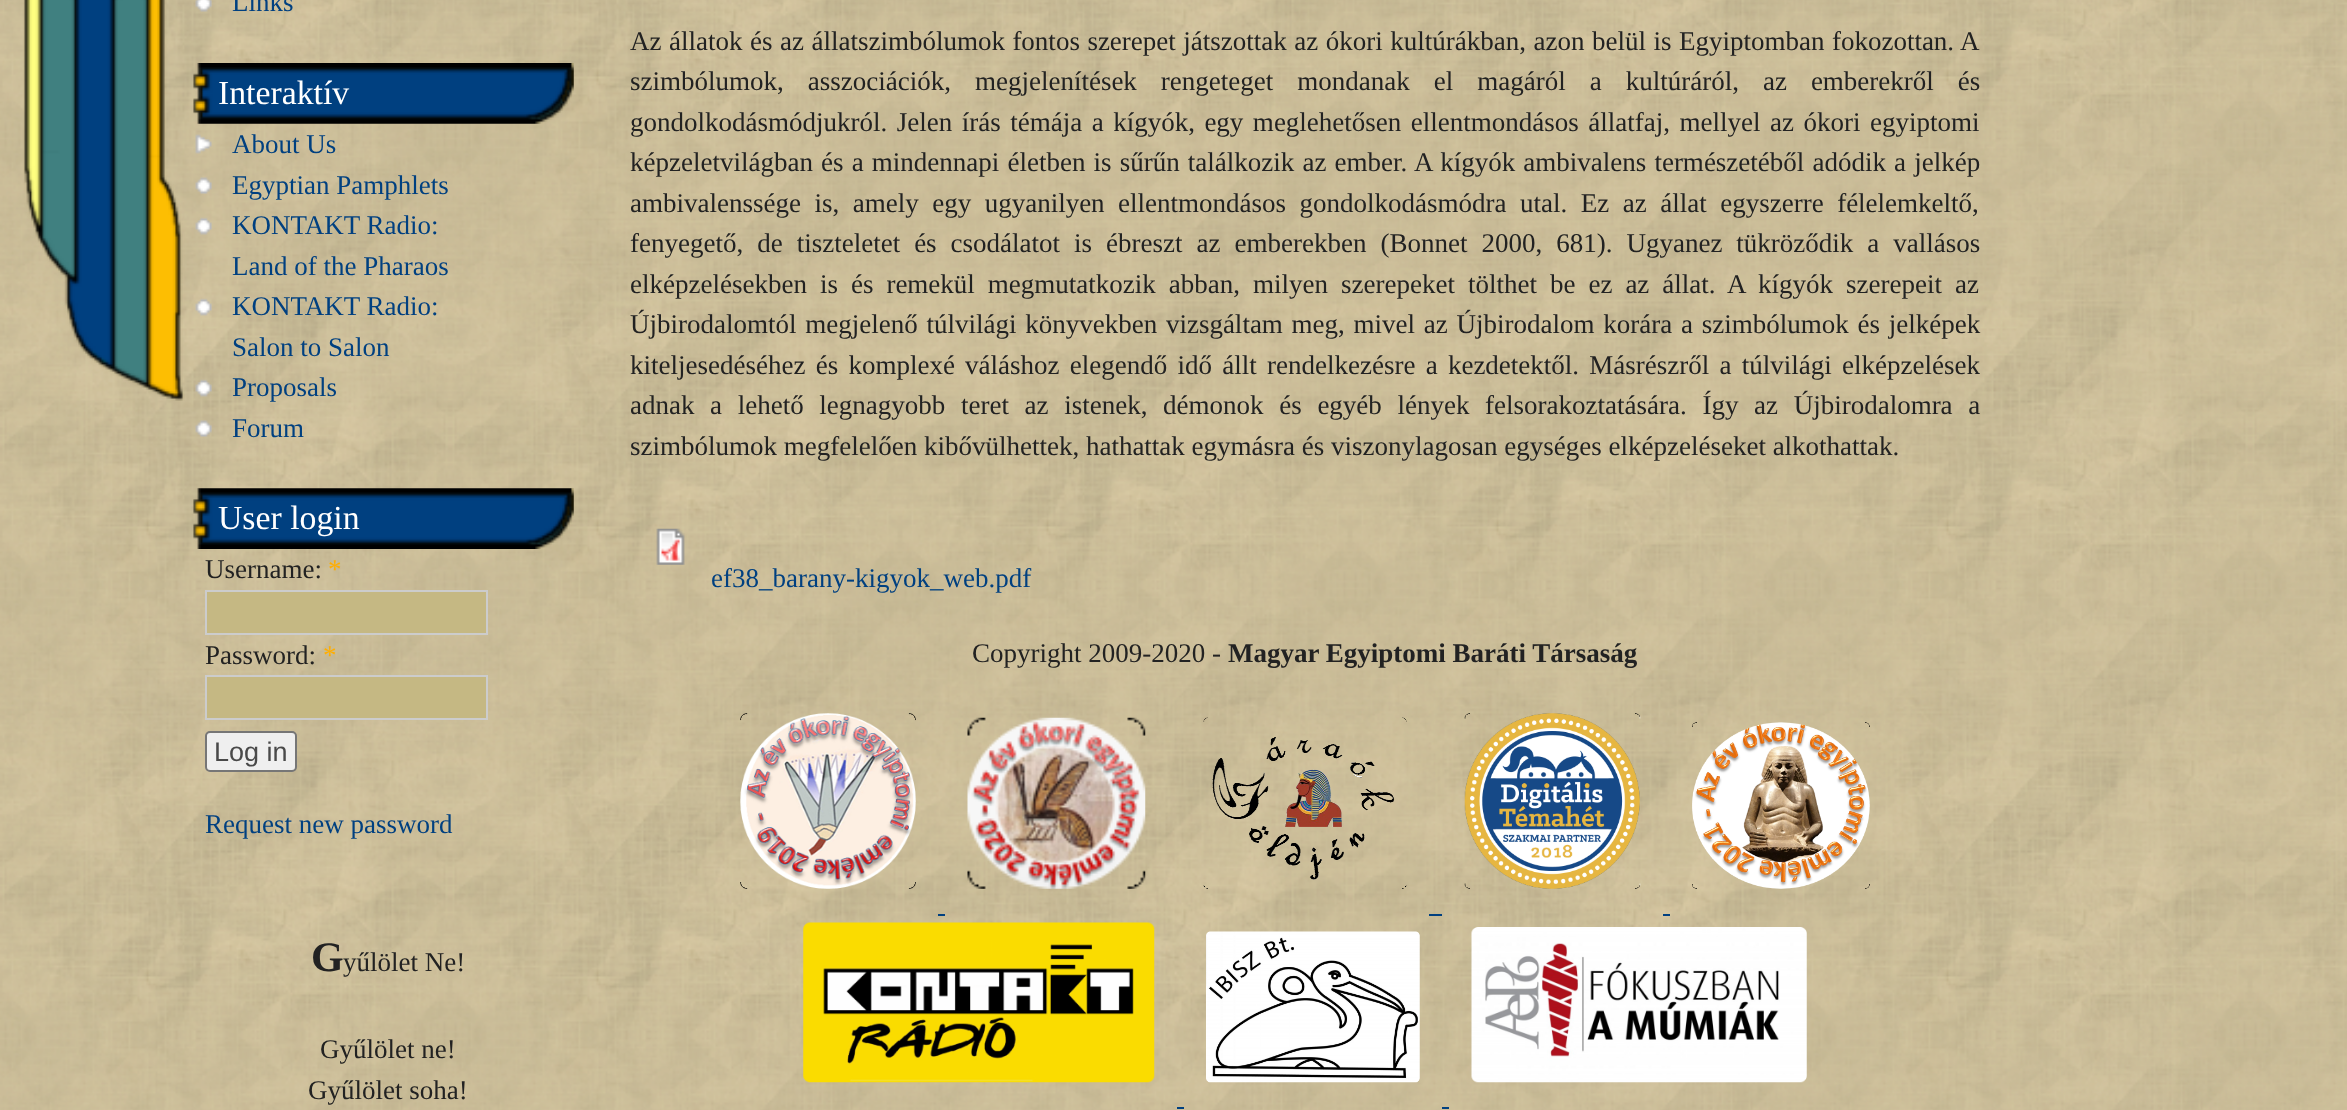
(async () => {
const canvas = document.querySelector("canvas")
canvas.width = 2347
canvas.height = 1110
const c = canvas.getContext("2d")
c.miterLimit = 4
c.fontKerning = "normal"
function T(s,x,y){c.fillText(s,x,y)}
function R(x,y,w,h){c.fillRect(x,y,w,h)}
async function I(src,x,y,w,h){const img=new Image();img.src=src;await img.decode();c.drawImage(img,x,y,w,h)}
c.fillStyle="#fff"
R(0,0,2347,1110)
await I("1.png",0,0,2347,1110)
await I("2.png",23,0,162,401)
await I("3.png",195,0,17,12)
c.font="27px Liberation Serif"
c.fillStyle="#004080"
T("Links",232,11)
await I("4.png",193,63,381,61)
c.font="33.75px Liberation Serif"
c.fillStyle="#fff"
T("Interaktív",218,104)
await I("5.png",195,134,17,20)
c.font="27px Liberation Serif"
c.fillStyle="#004080"
T("About Us",232,153)
await I("6.png",195,177,17,17)
T("Egyptian Pamphlets",232,194)
await I("7.png",195,217,17,18)
T("KONTAKT Radio:",232,234)
T("Land of the Pharaos",232,275)
await I("8.png",195,298,17,18)
T("KONTAKT Radio:",232,315)
T("Salon to Salon",232,356)
await I("9.png",195,379,17,18)
T("Proposals",232,396)
await I("10.png",195,420,17,17)
T("Forum",232,437)
await I("11.png",193,488,381,61)
c.font="33.75px Liberation Serif"
c.fillStyle="#fff"
T("User login",218,529)
c.font="27px Liberation Serif"
c.fillStyle="#222"
T("Username:",205,578)
c.fillStyle="#ffae00"
T("*",328,578)
c.fillStyle="#c5b883"
c.beginPath()
c.rect(206,591,281,43)
c.fill()
c.strokeStyle="#ccc"
c.lineWidth=2
c.stroke()
c.fillStyle="#222"
T("Password:",205,664)
c.fillStyle="#ffae00"
T("*",323,664)
c.fillStyle="#c5b883"
c.beginPath()
c.rect(206,676,281,43)
c.fill()
c.stroke()
c.fillStyle="#efefef"
c.beginPath()
c.roundRect(206,732,90,39,4)
c.fill()
c.strokeStyle="#767676"
c.stroke()
c.font="27px Liberation Sans"
c.fillStyle="#494949"
T("Log in",214,761)
c.font="27px Liberation Serif"
c.fillStyle="#004080"
T("Request new password",205,833)
c.font="bold 42px Liberation Serif"
c.fillStyle="#222"
T("G",311,971)
c.font="27px Liberation Serif"
T("yűlölet Ne!",343,971)
T("Gyűlölet ne!",320,1058)
T("Gyűlölet soha!",308,1099)
c.wordSpacing="0.75px"
T("Az állatok és az állatszimbólumok fontos szerepet játszottak az ókori kultúrákban, azon belül is Egyiptomban fokozottan. A",630,50)
c.wordSpacing="17.25px"
T("szimbólumok, asszociációk, megjelenítések rengeteget mondanak el magáról a kultúráról, az emberekről és",630,90)
c.wordSpacing="2.75px"
T("gondolkodásmódjukról. Jelen írás témája a kígyók, egy meglehetősen ellentmondásos állatfaj, mellyel az ókori egyiptomi",630,131)
c.wordSpacing="1.4px"
T("képzeletvilágban és a mindennapi életben is sűrűn találkozik az ember. A kígyók ambivalens természetéből adódik a jelkép",630,171)
c.wordSpacing="6.75px"
T("ambivalenssége is, amely egy ugyanilyen ellentmondásos gondolkodásmódra utal. Ez az állat egyszerre félelemkeltő,",630,212)
c.wordSpacing="7.25px"
T("fenyegető, de tiszteletet és csodálatot is ébreszt az emberekben (Bonnet 2000, 681). Ugyanez tükröződik a vallásos",630,252)
c.wordSpacing="6.25px"
T("elképzelésekben is és remekül megmutatkozik abban, milyen szerepeket tölthet be ez az állat. A kígyók szerepeit az",630,293)
c.wordSpacing="2px"
T("Újbirodalomtól megjelenő túlvilági könyvekben vizsgáltam meg, mivel az Újbirodalom korára a szimbólumok és jelképek",630,333)
c.wordSpacing="3.5px"
T("kiteljesedéséhez és komplexé váláshoz elegendő idő állt rendelkezésre a kezdetektől. Másrészről a túlvilági elképzelések",630,374)
c.wordSpacing="8.9px"
T("adnak a lehető legnagyobb teret az istenek, démonok és egyéb lények felsorakoztatására. Így az Újbirodalomra a",630,414)
c.wordSpacing="0px"
T("szimbólumok megfelelően kibővülhettek, hathattak egymásra és viszonylagosan egységes elképzeléseket alkothattak.",630,455)
await I("12.png",656,528,29,37)
c.fillStyle="#004080"
T("ef38_barany-kigyok_web.pdf",711,587)
c.fillStyle="#222"
T("Copyright 2009-2020 -",972,662)
c.font="bold 27px Liberation Serif"
T("Magyar Egyiptomi Baráti Társaság",1228,662)
await I("13.png",740,713,176,176)
await I("14.png",967,717,179,172)
await I("15.png",1203,717,204,172)
await I("16.png",1464,713,177,176)
await I("17.png",1692,722,178,167)
c.fillStyle="#004080"
R(938,914,7,2)
R(1429,914,13,2)
R(1663,914,7,2)
await I("18.png",803,922,352,161)
await I("19.png",1206,931,214,152)
await I("20.png",1471,927,336,156)
R(1177,1107,7,2)
R(1442,1107,7,2)
})()
